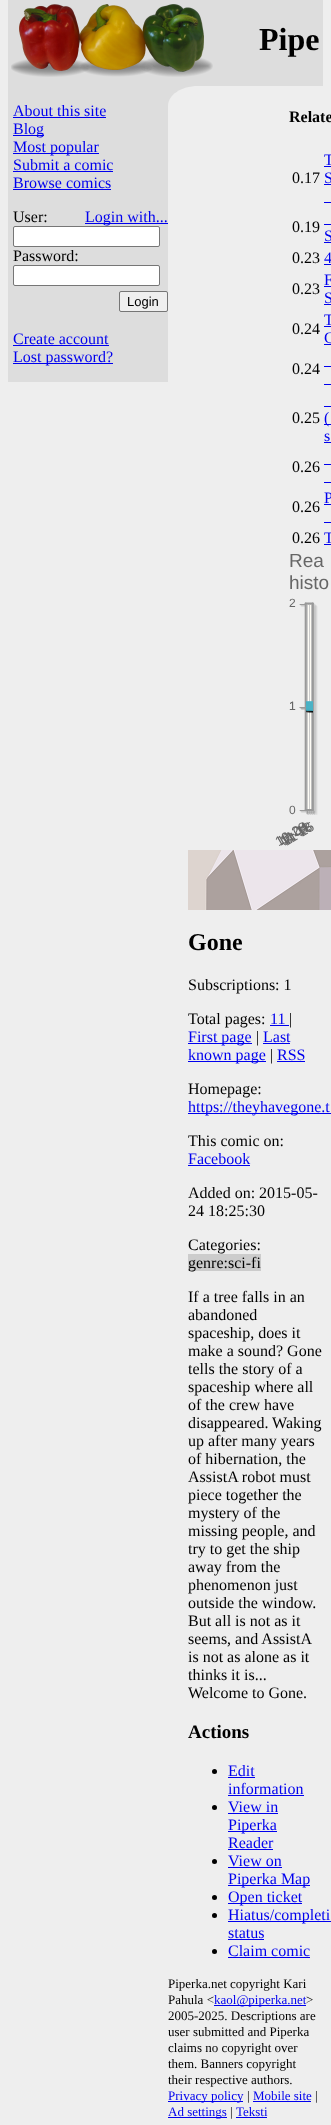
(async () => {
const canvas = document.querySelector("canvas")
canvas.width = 331
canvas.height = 2125
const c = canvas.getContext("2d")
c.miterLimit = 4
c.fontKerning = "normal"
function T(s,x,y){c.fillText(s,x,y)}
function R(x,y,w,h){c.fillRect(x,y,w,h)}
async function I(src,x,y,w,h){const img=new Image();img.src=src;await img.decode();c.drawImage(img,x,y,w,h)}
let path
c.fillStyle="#eee"
R(0,0,331,2125)
c.fillStyle="#ddd"
R(8,0,315,86)
await I("1.png",11,4,202,73)
c.font="bold 32px Liberation Serif"
c.fillStyle="#000"
T("Pipe",259,50)
c.fillStyle="#ddd"
R(168,86,29,20)
R(8,86,160,296)
c.font="16px Liberation Serif"
c.fillStyle="#00e"
T("About this site",13,116)
R(13,117,93,1)
R(13,135,31,1)
T("Blog",13,134)
R(13,153,86,1)
T("Most popular",13,152)
T("Submit a comic",13,170)
R(13,171,100,1)
T("Browse comics",13,188)
R(13,189,98,1)
c.fillStyle="#000"
T("User:",13,222)
c.fillStyle="#00e"
R(85,223,83,1)
T("Login with...",85,222)
c.fillStyle="#fff"
c.beginPath()
c.roundRect(13.5,226.5,146,20,1.5)
c.fill()
c.strokeStyle="#767676"
c.stroke()
c.fillStyle="#000"
T("Password:",13,261)
c.fillStyle="#fff"
c.beginPath()
c.roundRect(13.5,265.5,146,20,1.5)
c.fill()
c.stroke()
c.fillStyle="#efefef"
c.beginPath()
c.roundRect(119.5,291.5,48,20,1.5)
c.fill()
c.stroke()
c.font="13px Liberation Sans"
c.fillStyle="#000"
T("Login",127,306)
c.font="16px Liberation Serif"
c.fillStyle="#00e"
T("Create account",13,344)
R(13,345,96,1)
R(13,363,100,1)
T("Lost password?",13,362)
c.fillStyle="#eee"
path = new Path2D("M198 86h125v1874h-155v-1854c0-11 13-20 30-20z")
c.fill(path)
c.font="bold 16px Liberation Serif"
c.fillStyle="#000"
T("Relate",289,122)
c.font="16px Liberation Serif"
T("0.17",292,183)
c.fillStyle="#00e"
T("T",324,165)
R(324,166,7,1)
T("S",324,183)
R(324,184,7,1)
R(324,202,7,1)
c.fillStyle="#000"
T("0.19",292,232)
c.fillStyle="#00e"
T("S",324,241)
R(324,224,7,1)
R(324,242,7,1)
c.fillStyle="#000"
T("0.23",292,263)
c.fillStyle="#00e"
T("4",324,263)
R(324,264,7,1)
c.fillStyle="#000"
T("0.23",292,294)
c.fillStyle="#00e"
T("F",324,285)
R(324,286,7,1)
T("S",324,303)
R(324,304,7,1)
c.fillStyle="#000"
T("0.24",292,334)
c.fillStyle="#00e"
T("T",324,325)
R(324,326,7,1)
T("C",324,343)
R(324,344,7,1)
c.fillStyle="#000"
T("0.24",292,374)
c.fillStyle="#00e"
R(324,366,7,1)
R(324,384,7,1)
c.fillStyle="#000"
T("0.25",292,423)
c.fillStyle="#00e"
R(324,424,7,1)
T("(",324,423)
R(324,406,7,1)
T("s",324,441)
R(324,442,7,1)
c.fillStyle="#000"
T("0.26",292,472)
c.fillStyle="#00e"
R(324,464,7,1)
R(324,482,7,1)
T("P",324,503)
R(324,504,7,1)
R(324,522,7,1)
c.fillStyle="#000"
T("0.26",292,512)
T("0.26",292,543)
c.fillStyle="#00e"
T("T",324,543)
R(324,544,7,1)
c.font="19px Liberation Sans"
c.fillStyle="#666"
T("Rea",289,567)
T("histo",289,589)
c.font="12px Liberation Sans"
T("2",289,607)
T("1",289,710)
T("1",289,710)
T("0",289,814)
await I("2.png",299,602,19,213)
await I("3.png",306,701,7,12)
await I("4.png",275,822,32,24)
await I("5.png",277,822,31,24)
await I("6.png",281,822,30,23)
await I("7.png",282,822,30,24)
await I("8.png",284,822,30,24)
await I("9.png",188,850,143,60)
c.font="bold 24px Liberation Serif"
c.fillStyle="#000"
T("Gone",188,950)
c.font="16px Liberation Serif"
T("Subscriptions: 1",188,990)
T("Total pages:",188,1024)
c.fillStyle="#00e"
T("11",270,1024)
R(270,1025,19,1)
c.fillStyle="#000"
T("|",289,1024)
c.fillStyle="#00e"
R(188,1043,64,1)
T("First page",188,1042)
c.fillStyle="#000"
T("|",256,1042)
c.fillStyle="#00e"
T("Last",263,1042)
R(263,1043,27,1)
R(188,1061,78,1)
T("known page",188,1060)
c.fillStyle="#000"
T("|",270,1060)
c.fillStyle="#00e"
T("RSS",277,1060)
R(277,1061,28,1)
c.fillStyle="#000"
T("Homepage:",188,1094)
c.fillStyle="#00e"
R(188,1113,143,1)
T("https://theyhavegone.t",188,1112)
c.fillStyle="#000"
T("This comic on:",188,1146)
c.fillStyle="#00e"
T("Facebook",188,1164)
R(188,1165,62,1)
c.fillStyle="#000"
T("Added on: 2015-05-",188,1198)
T("24 18:25:30",188,1216)
T("Categories:",188,1250)
c.fillStyle="#ccc"
R(188,1254,73,17)
c.fillStyle="#000"
T("genre:sci-fi",188,1268)
T("If a tree falls in an",188,1302)
T("abandoned",188,1320)
T("spaceship, does it",188,1338)
T("make a sound? Gone",188,1356)
T("tells the story of a",188,1374)
T("spaceship where all",188,1392)
T("of the crew have",188,1410)
T("disappeared. Waking",188,1428)
T("up after many years",188,1446)
T("of hibernation, the",188,1464)
T("AssistA robot must",188,1482)
T("piece together the",188,1500)
T("mystery of the",188,1518)
T("missing people, and",188,1536)
T("try to get the ship",188,1554)
T("away from the",188,1572)
T("phenomenon just",188,1590)
T("outside the window.",188,1608)
T("But all is not as it",188,1626)
T("seems, and AssistA",188,1644)
T("is not as alone as it",188,1662)
T("thinks it is...",188,1680)
T("Welcome to Gone.",188,1698)
c.font="bold 19px Liberation Serif"
T("Actions",188,1738)
c.beginPath()
c.arc(214.5,1771.5,2.5,0,7)
c.fill()
c.font="16px Liberation Serif"
c.fillStyle="#00e"
T("Edit",228,1776)
R(228,1777,27,1)
T("information",228,1794)
R(228,1795,76,1)
c.fillStyle="#000"
c.beginPath()
c.arc(214.5,1807.5,2.5,0,7)
c.fill()
c.fillStyle="#00e"
T("View in",228,1812)
R(228,1813,50,1)
R(228,1831,49,1)
T("Piperka",228,1830)
T("Reader",228,1848)
R(228,1849,45,1)
c.fillStyle="#000"
c.beginPath()
c.arc(214.5,1861.5,2.5,0,7)
c.fill()
c.fillStyle="#00e"
T("View on",228,1866)
R(228,1867,54,1)
R(228,1885,82,1)
T("Piperka Map",228,1884)
c.fillStyle="#000"
c.beginPath()
c.arc(214.5,1897.5,2.5,0,7)
c.fill()
c.fillStyle="#00e"
R(228,1903,74,1)
T("Open ticket",228,1902)
c.fillStyle="#000"
c.beginPath()
c.arc(214.5,1915.5,2.5,0,7)
c.fill()
c.fillStyle="#00e"
R(228,1921,103,1)
T("Hiatus/completi",228,1920)
T("status",228,1938)
R(228,1939,36,1)
c.fillStyle="#000"
c.beginPath()
c.arc(214.5,1951.5,2.5,0,7)
c.fill()
c.fillStyle="#00e"
T("Claim comic",228,1956)
R(228,1957,82,1)
c.font="13px Liberation Serif"
c.fillStyle="#000"
T("Piperka.net copyright Kari",168,1988)
T("Pahula <",168,2004)
c.fillStyle="#00e"
R(214,2005,92,1)
T("kaol@piperka.net",214,2004)
c.fillStyle="#000"
T(">",306,2004)
T("2005-2025. Descriptions are",168,2020)
T("user submitted and Piperka",168,2036)
T("claims no copyright over",168,2052)
T("them. Banners copyright",168,2068)
T("their respective authors.",168,2084)
c.fillStyle="#00e"
R(168,2101,75,1)
T("Privacy policy",168,2100)
c.fillStyle="#000"
T("|",247,2100)
c.fillStyle="#00e"
T("Mobile site",253,2100)
R(253,2101,58,1)
c.fillStyle="#000"
T("|",315,2100)
c.fillStyle="#00e"
R(168,2117,59,1)
T("Ad settings",168,2116)
c.fillStyle="#000"
T("|",230,2116)
c.fillStyle="#00e"
T("Teksti",236,2116)
R(236,2117,31,1)
})()
